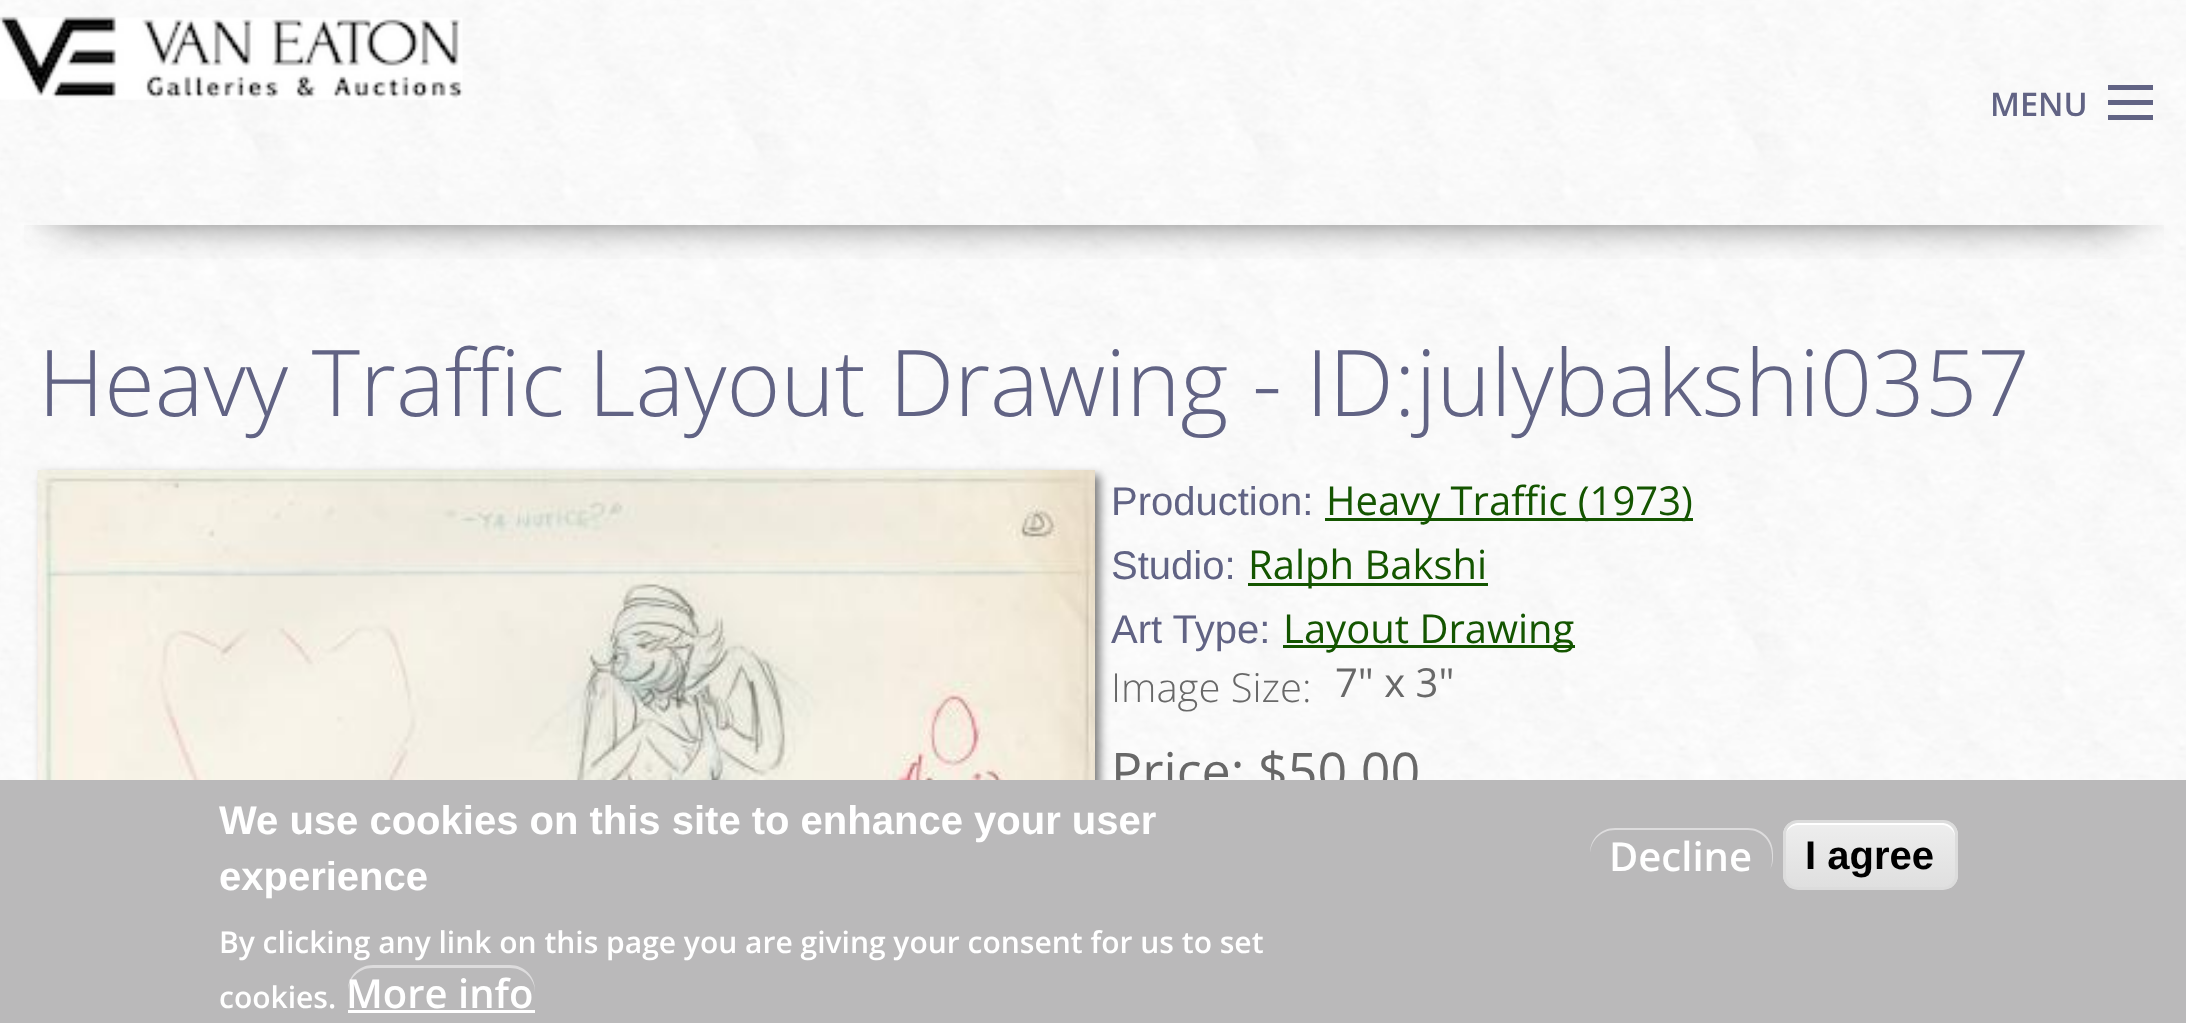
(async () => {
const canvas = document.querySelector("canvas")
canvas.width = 2186
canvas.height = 1023
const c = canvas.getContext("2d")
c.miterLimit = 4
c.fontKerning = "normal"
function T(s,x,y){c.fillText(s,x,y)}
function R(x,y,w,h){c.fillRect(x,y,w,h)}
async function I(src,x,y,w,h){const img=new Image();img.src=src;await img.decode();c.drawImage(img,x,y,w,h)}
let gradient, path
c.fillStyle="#fff"
R(0,0,2186,1023)
await I("1.png",0,0,2186,780)
c.save()
c.beginPath()
c.rect(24,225,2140,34)
c.clip()
c.fillStyle="#000"
c.filter="blur(24px)"
c.beginPath()
c.rect(58,100,2072,110)
c.fill()
c.filter="none"
c.restore()
await I("2.png",0,16,463,84)
c.fillStyle="#616384"
R(2108,115,45,5)
R(2108,100,45,5)
R(2108,85,45,5)
c.font="600 32.5px Open Sans"
T("MENU",1990,116)
c.font="300 92px Open Sans"
T("Heavy Traffic Layout Drawing - ID:julybakshi0357",38,416)
c.fillStyle="#00000080"
c.filter="blur(5px)"
c.beginPath()
c.rect(43,475,1057,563)
c.fill()
c.filter="none"
await I("3.png",37,470,1058,310)
c.font="40px Liberation Sans"
c.fillStyle="#616384"
T("Production:",1111,515)
c.fillStyle="#145500"
R(1325,518,368,3)
c.font="40px Open Sans"
T("Heavy Traffic (1973)",1326,515)
c.font="40px Liberation Sans"
c.fillStyle="#616384"
T("Studio:",1111,579)
c.fillStyle="#145500"
R(1248,583,240,3)
c.font="40px Open Sans"
T("Ralph Bakshi",1248,579)
c.font="40px Liberation Sans"
c.fillStyle="#616384"
T("Art Type:",1111,643)
c.fillStyle="#145500"
R(1283,645,292,3)
c.font="40px Open Sans"
T("Layout Drawing",1283,643)
c.font="300 40px Open Sans"
c.fillStyle="#686868"
T("Image Size:",1111,702)
c.font="40px Open Sans"
T("7\" x 3\"",1335,697)
c.font="52px Open Sans"
T("Price: $50.00",1111,790)
c.fillStyle="#bab9ba"
R(0,780,2186,243)
c.font="bold 40px Liberation Sans"
c.fillStyle="#fff"
T("We use cookies on this site to enhance your user",219,834)
T("experience",219,890)
c.font="600 30px Open Sans"
T("By clicking any link on this page you are giving your consent for us to set",219,953)
T("cookies.",219,1008)
c.fillStyle="#dddcdd"
path = new Path2D("M372 968h138c14 0 25 11 25 24v-2c0-14-11-25-25-25h-137c-14 0-25 11-25 25v2c0-13 11-24 24-24z")
c.fill(path)
c.font="600 40px Open Sans"
c.fillStyle="#fff"
T("More info",346,1008)
R(348,1010,187,3)
c.fillStyle="#dddcdd"
path = new Path2D("M1615 830h133c13 0 24 11 24 25v5c0 3-1 7-2 9c2-3 3-7 3-11v-5c0-14-11-25-25-25h-133c-14 0-25 11-25 25v2c0-14 11-25 25-25z")
c.fill(path)
c.fillStyle="#fff"
T("Decline",1609,871)
c.save()
c.beginPath()
c.roundRect(1783,820,175,70,15)
c.clip()
gradient = c.createLinearGradient(1870,823,1870,888)
gradient.addColorStop(.05,"#ededed")
gradient.addColorStop(1,"#dfdfdf")
c.fillStyle = gradient
R(1783,823,175,65)
c.restore()
path = new Path2D("M1798 825h144c7 0 13 6 13 13c0-21-23-15-37-15h-96c-14 0-37-6-37 15c0-7 6-13 13-13z")
c.fill(path)
c.beginPath()
c.roundRect(1784.5,821.5,172,67,13.5)
c.strokeStyle="#dcdcdc"
c.lineWidth=3
c.stroke()
c.font="bold 40px Liberation Sans"
c.fillStyle="#000"
T("I agree",1805,869)
})()
